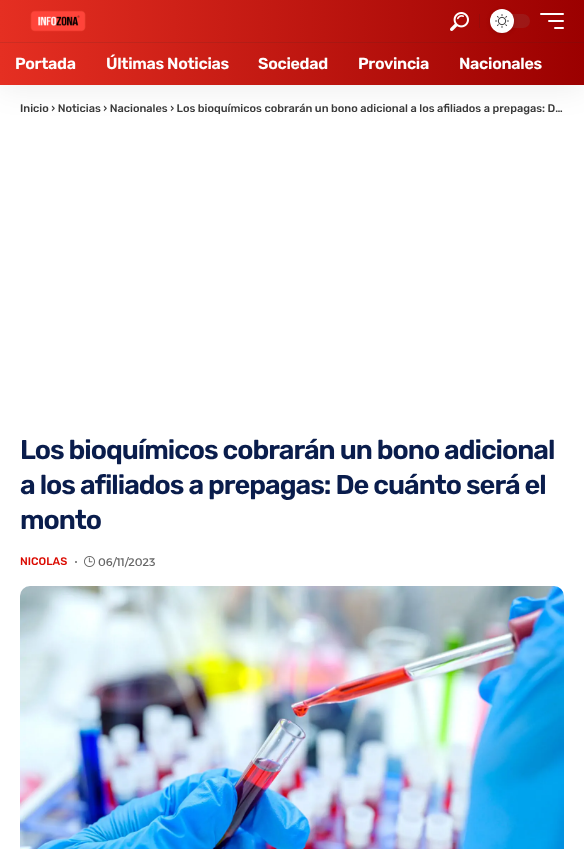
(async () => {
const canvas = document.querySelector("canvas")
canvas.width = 584
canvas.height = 849
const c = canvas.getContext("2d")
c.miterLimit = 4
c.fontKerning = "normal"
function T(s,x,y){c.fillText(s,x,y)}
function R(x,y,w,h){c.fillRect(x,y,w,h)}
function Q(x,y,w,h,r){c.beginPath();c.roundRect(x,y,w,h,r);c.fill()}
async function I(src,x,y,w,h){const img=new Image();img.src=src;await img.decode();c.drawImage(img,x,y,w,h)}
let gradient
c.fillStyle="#fff"
R(0,0,584,849)
c.fillStyle="#00000012"
c.filter="blur(15px)"
c.beginPath()
c.rect(0,4,584,85)
c.fill()
c.filter="none"
gradient = c.createLinearGradient(0,43,584,42)
gradient.addColorStop(0,"#e52f22")
gradient.addColorStop(1,"#9b0000")
c.fillStyle = gradient
R(0,0,584,85)
gradient = c.createLinearGradient(0,43,584,42)
gradient.addColorStop(0,"#ce2e23")
gradient.addColorStop(1,"#8d0505")
c.fillStyle = gradient
R(0,42,584,1)
await I("1.png",30,10,56,22)
await I("2.png",450,12,19,19)
c.fillStyle="#980c0a"
R(479,14,1,14)
c.fillStyle="#88888826"
Q(490,14,40,14,7)
c.fillStyle="#0000001f"
c.filter="blur(2px)"
c.beginPath()
c.roundRect(490,10,24,24,12)
c.fill()
c.filter="none"
c.fillStyle="#fff"
c.beginPath()
c.arc(502,21,12,0,7)
c.fill()
await I("3.png",495,14,14,14)
Q(540,13,24,2,1)
Q(548,20,16,2,1)
Q(554,27,10,2,1)
c.letterSpacing="-0.3px"
c.font="600 16px Rubik"
T("Portada",15,69)
T("Últimas Noticias",106,69)
T("Sociedad",258,69)
T("Provincia",358,69)
T("Nacionales",459,69)
c.letterSpacing="0px"
c.font="500 11px Rubik"
c.fillStyle="#3a3a3a"
T("Inicio › Noticias › Nacionales › Los bioquímicos cobrarán un bono adicional a los afiliados a prepagas: D…",20,112)
c.letterSpacing="-1px"
c.font="600 27px Rubik"
c.fillStyle="#0a1d4c"
T("Los bioquímicos cobrarán un bono adicional",20,459)
T("a los afiliados a prepagas: De cuánto será el",20,494)
T("monto",20,529)
c.letterSpacing="0px"
c.font="500 11px Rubik"
c.fillStyle="#db0a00"
T("NICOLAS",20,565)
c.fillStyle="#666"
c.beginPath()
c.arc(76,562,1,0,7)
c.fill()
await I("4.png",84,556,11,11)
c.font="11px Alexandria"
T("06/11/2023",98,566)
await I("5.png",20,586,544,263)
})()
